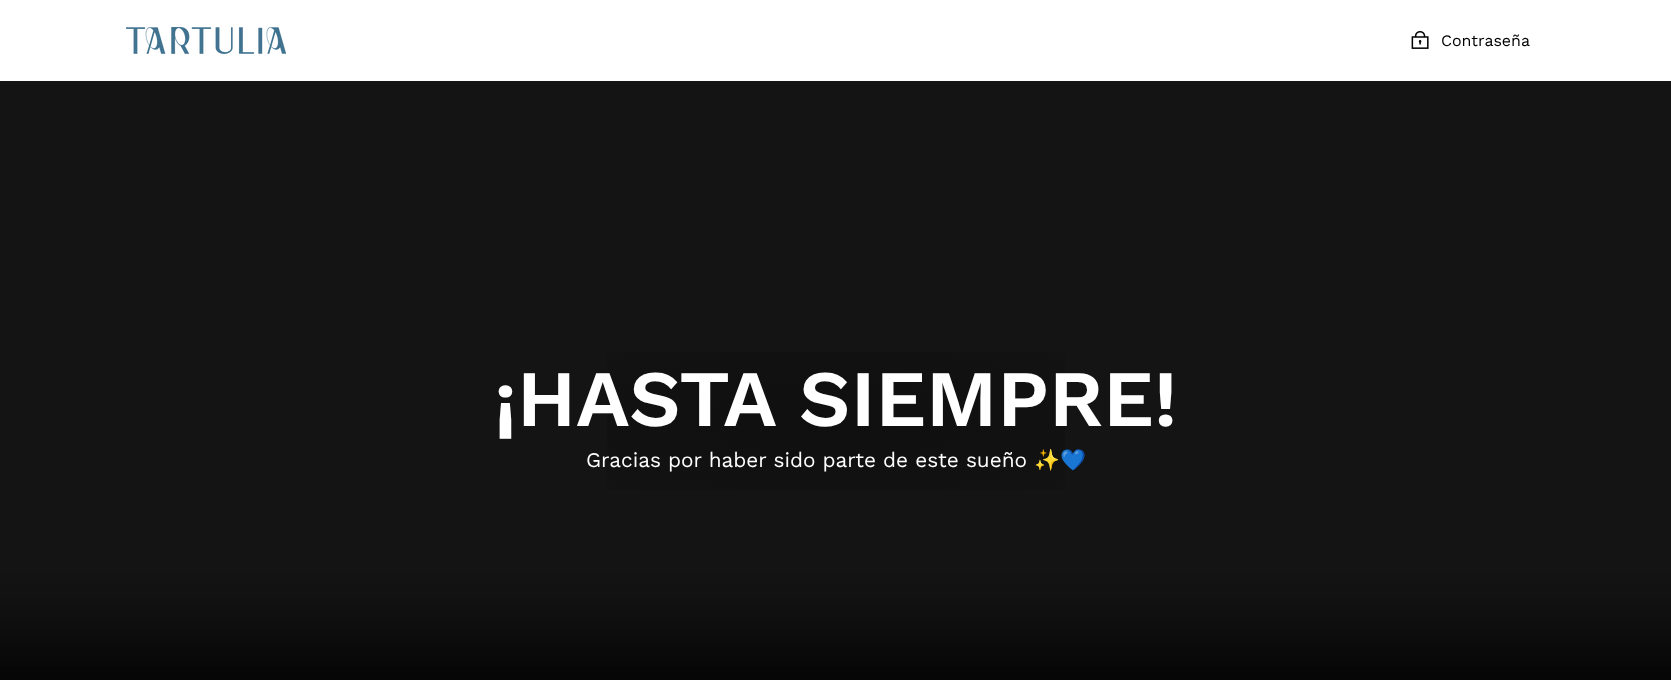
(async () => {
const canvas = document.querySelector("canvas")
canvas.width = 1671
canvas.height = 680
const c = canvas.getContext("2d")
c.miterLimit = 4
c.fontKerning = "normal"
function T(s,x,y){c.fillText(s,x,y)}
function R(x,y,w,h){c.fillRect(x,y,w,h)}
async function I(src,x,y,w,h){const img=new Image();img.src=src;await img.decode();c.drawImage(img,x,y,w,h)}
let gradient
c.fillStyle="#fff"
R(0,0,1671,680)
await I("1.png",126,27,160,27)
await I("2.png",1411,31,18,18)
c.font="16px Work Sans"
c.fillStyle="#000"
T("Contraseña",1441,46)
c.fillStyle="#060606"
R(0,666,1671,14)
await I("3.png",0,81,1671,585)
gradient = c.createRadialGradient(836,1408.24,0,836,1408.24,766)
gradient.addColorStop(0,"#0f0f0f")
gradient.addColorStop(.6,"#141414")
c.fillStyle = gradient
c.beginPath()
c.rect(607,352,458,138)
c.save()
c.clip()
c.scale(1,229 / 766)
c.fillRect(0,0,1671,2275)
c.restore()
c.font="600 80px Work Sans"
c.fillStyle="#fff"
T("¡HASTA SIEMPRE!",494,426)
c.font="20.8px Work Sans"
T("Gracias por haber sido parte de este sueño",586,467)
c.font="20.8px Noto Color Emoji"
T("✨💙",1034,467)
})()
